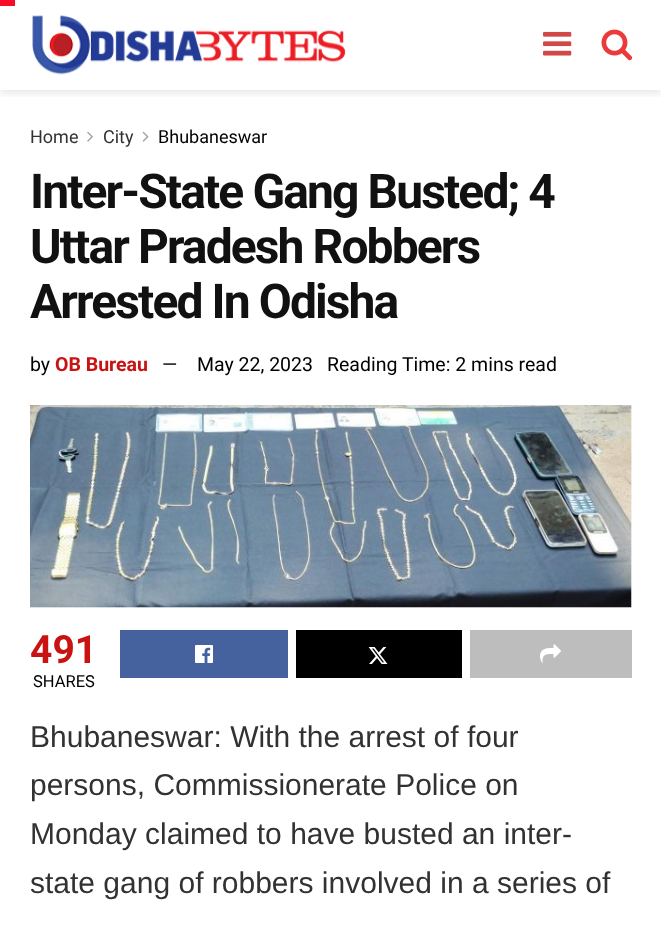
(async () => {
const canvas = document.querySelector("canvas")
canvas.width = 661
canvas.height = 936
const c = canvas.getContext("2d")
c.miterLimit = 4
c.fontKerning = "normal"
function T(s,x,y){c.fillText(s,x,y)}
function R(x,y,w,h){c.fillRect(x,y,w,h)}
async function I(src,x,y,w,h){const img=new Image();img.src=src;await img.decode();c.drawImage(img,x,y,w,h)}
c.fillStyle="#fff"
R(0,0,661,936)
c.save()
c.beginPath()
c.rect(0,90,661,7)
c.clip()
c.fillStyle="#0000001a"
c.filter="blur(4.5px)"
c.beginPath()
c.rect(0,3,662,90)
c.fill()
c.filter="none"
c.restore()
c.fillStyle="#f70d28"
R(0,0,15,6)
await I("1.png",32,15,314,60)
await I("2.png",543,31,29,25)
await I("3.png",601,29,32,32)
c.font="18px Roboto"
c.fillStyle="#323232"
T("Home",30,143)
await I("4.png",87,131,6,11)
T("City",103,143)
await I("5.png",142,131,7,11)
c.fillStyle="#000"
T("Bhubaneswar",158,143)
c.letterSpacing="-1.9px"
c.font="bold 48px Roboto"
c.fillStyle="#111"
T("Inter-State Gang Busted; 4",30,208)
T("Uttar Pradesh Robbers",30,263)
T("Arrested In Odisha",30,318)
c.letterSpacing="0px"
c.font="19.5px Roboto"
c.fillStyle="#000"
T("by",30,371)
c.font="bold 19.5px Roboto"
c.fillStyle="#c91212"
T("OB Bureau",55,371)
c.font="19.5px Roboto"
c.fillStyle="#000"
T("—",162,371)
T("May 22, 2023",197,371)
T("Reading Time: 2 mins read",327,371)
c.fillStyle="#f7f7f7"
R(30,405,602,203)
await I("6.png",30,405,602,203)
c.font="bold 39px Roboto"
c.fillStyle="#c91212"
T("491",30,663)
c.font="16.5px Roboto"
c.fillStyle="#000"
T("SHARES",33,687)
c.fillStyle="#45629f"
R(120,630,168,48)
await I("7.png",195,645,18,18)
c.fillStyle="#000"
R(296,630,166,48)
await I("8.png",368,647,20,17)
c.fillStyle="#bdbdbd"
R(470,630,162,48)
await I("9.png",540,644,21,19)
c.font="30px Liberation Sans"
c.fillStyle="#323232"
T("Bhubaneswar: With the arrest of four",30,747)
T("persons, Commissionerate Police on",30,795)
T("Monday claimed to have busted an inter-",30,844)
T("state gang of robbers involved in a series of",30,893)
})()
